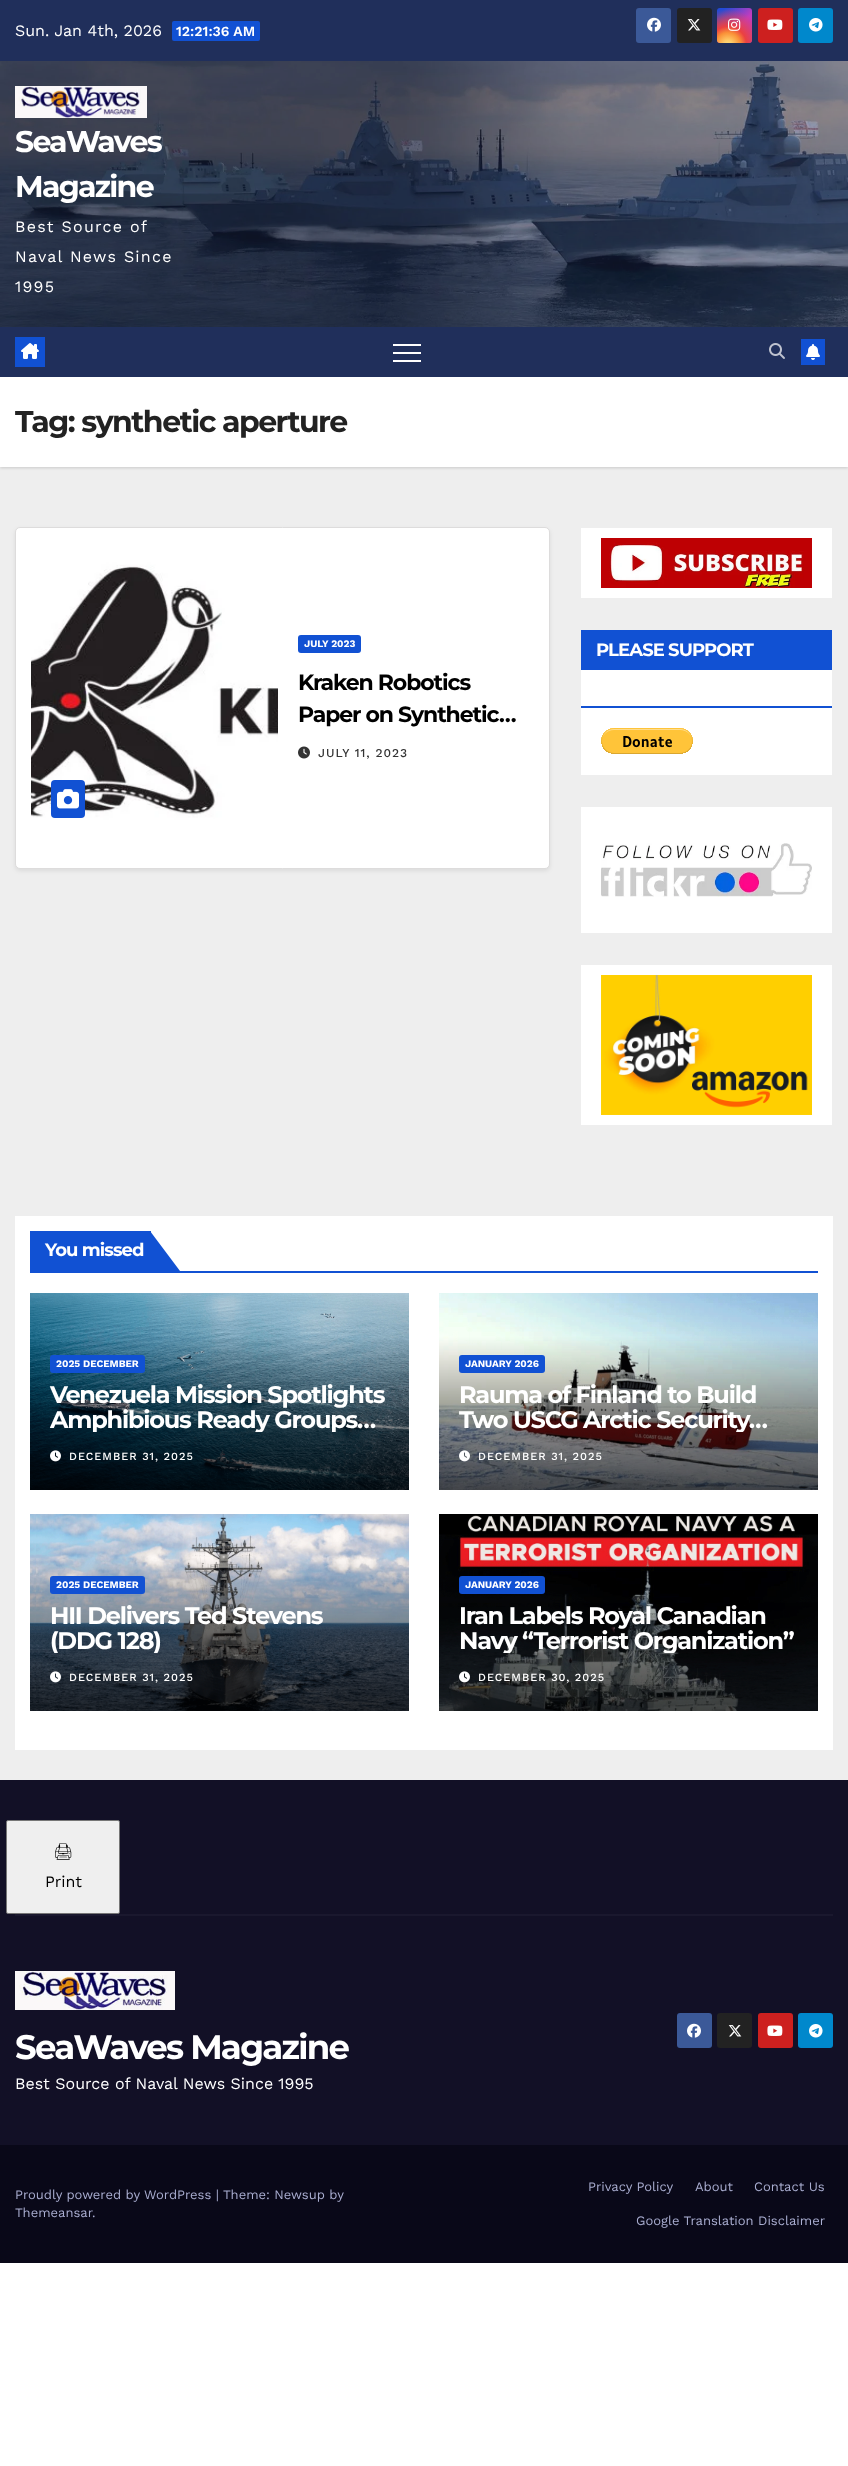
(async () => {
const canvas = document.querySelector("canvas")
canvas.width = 848
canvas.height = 2466
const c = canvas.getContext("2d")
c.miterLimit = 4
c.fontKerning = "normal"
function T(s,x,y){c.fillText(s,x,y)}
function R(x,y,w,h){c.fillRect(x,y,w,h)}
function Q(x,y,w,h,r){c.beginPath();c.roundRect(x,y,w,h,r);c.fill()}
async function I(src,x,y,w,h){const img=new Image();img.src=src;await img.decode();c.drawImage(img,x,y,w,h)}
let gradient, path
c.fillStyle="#fff"
R(0,0,848,2466)
c.fillStyle="#eee"
R(0,467,848,1313)
c.fillStyle="#202f5b"
R(0,0,848,61)
c.font="16px Work Sans"
c.fillStyle="#fff"
T("Sun. Jan 4th, 2026",15,36)
c.fillStyle="#1151d3"
Q(172,21,88,20,2)
c.font="600 14px Work Sans"
c.fillStyle="#fff"
T("12:21:36 AM",176,36)
c.fillStyle="#3b5998"
Q(636,8,35,35,3)
await I("1.png",647,17,14,15)
c.fillStyle="#222"
Q(677,8,35,35,3)
await I("2.png",687,19,14,12)
gradient = c.createLinearGradient(717,8,752,43)
gradient.addColorStop(.12,"#234bd7")
gradient.addColorStop(.58,"#c33cbe")
c.fillStyle = gradient
Q(717,8,35,35,3)
gradient = c.createRadialGradient(728,45,0,728,45,44)
gradient.addColorStop(0,"#ffe17d")
gradient.addColorStop(.1,"#ffcd69")
gradient.addColorStop(.28,"#fa9137")
gradient.addColorStop(.42,"#eb4141")
gradient.addColorStop(.82,"#eb414100")
c.fillStyle = gradient
Q(717,8,35,35,3)
await I("3.png",728,18,13,13)
c.fillStyle="#cd201f"
Q(758,8,35,35,3)
await I("4.png",767,19,16,11)
c.fillStyle="#08c"
Q(798,8,35,35,3)
await I("5.png",809,18,14,14)
await I("6.png",0,61,848,266)
await I("7.png",15,86,132,32)
c.letterSpacing="-1.75px"
c.font="bold 30px Montserrat"
c.fillStyle="#fff"
T("SeaWaves",15,152)
T("Magazine",15,197)
c.letterSpacing="1.25px"
c.font="16px Work Sans"
T("Best Source of",15,232)
T("Naval News Since",15,262)
T("1995",15,292)
c.fillStyle="#00000026"
c.filter="blur(1.5px)"
c.beginPath()
c.rect(0,378,848,90)
c.fill()
c.filter="none"
c.fillStyle="#202f5b"
R(0,327,848,50)
c.fillStyle="#1151d3"
R(15,337,30,30)
await I("8.png",21,343,18,16)
c.fillStyle="#fff"
R(393,344,28,2)
R(393,352,28,2)
R(393,360,28,2)
await I("9.png",769,343,16,16)
c.fillStyle="#1151d3"
R(801,339,24,26)
await I("10.png",806,344,14,16)
c.fillStyle="#fff"
R(0,377,848,90)
c.letterSpacing="-1.5px"
c.font="bold 30px Montserrat"
c.fillStyle="#222"
T("Tag: synthetic aperture",15,432)
c.fillStyle="#00000014"
c.filter="blur(2px)"
c.beginPath()
c.roundRect(15,529,535,342,5)
c.fill()
c.filter="none"
c.fillStyle="#fff"
c.beginPath()
c.roundRect(15.5,527.5,534,341,4.5)
c.fill()
c.strokeStyle="#dddcdc"
c.stroke()
await I("11.png",31,548,247,300)
c.fillStyle="#1151d3"
Q(51,780,34,38,4)
await I("12.png",57,789,22,20)
Q(298,635,63,18,3)
c.letterSpacing="0px"
c.font="bold 10px Work Sans"
c.fillStyle="#fff"
T("JULY 2023",304,647)
c.letterSpacing="-1.1px"
c.font="bold 22px Montserrat"
c.fillStyle="#000"
T("Kraken Robotics",298,690)
T("Paper on Synthetic…",298,722)
await I("13.png",298,746,12,13)
c.letterSpacing="1px"
c.font="500 12px Work Sans"
c.fillStyle="#333"
T("JULY 11, 2023",318,757)
c.fillStyle="#fff"
R(581,528,251,70)
await I("14.png",601,538,211,50)
R(581,670,251,105)
c.fillStyle="#1151d3"
R(581,706,251,2)
R(581,630,251,40)
c.letterSpacing="-0.9px"
c.font="bold 18px Montserrat"
c.fillStyle="#fff"
T("PLEASE SUPPORT",596,656)
await I("15.png",601,728,92,26)
R(581,807,251,126)
await I("16.png",601,843,211,54)
R(581,965,251,160)
await I("17.png",601,975,211,140)
R(15,1216,818,534)
c.fillStyle="#1151d3"
R(30,1271,788,2)
R(30,1231,121,40)
c.fillStyle="#fff"
T("You missed",45,1256)
c.fillStyle="#1151d3"
path = new Path2D("M150 1271v-40l30 40z")
c.fill(path)
await I("18.png",30,1293,379,197)
Q(50,1355,95,18,3)
c.letterSpacing="0px"
c.font="bold 10px Work Sans"
c.fillStyle="#fff"
T("2025 DECEMBER",56,1367)
c.letterSpacing="-1.2px"
c.font="bold 24px Montserrat"
T("Venezuela Mission Spotlights",50,1403)
c.save()
c.beginPath()
c.rect(50,1382,339,50)
c.clip()
T("Amphibious Ready Groups…",50,1428)
c.restore()
await I("19.png",50,1450,11,12)
c.letterSpacing="1px"
c.font="500 11px Work Sans"
T("DECEMBER 31, 2025",69,1460)
await I("20.png",439,1293,379,197)
c.fillStyle="#1151d3"
Q(459,1355,86,18,3)
c.letterSpacing="0px"
c.font="bold 10px Work Sans"
c.fillStyle="#fff"
T("JANUARY 2026",465,1367)
c.letterSpacing="-1.2px"
c.font="bold 24px Montserrat"
T("Rauma of Finland to Build",459,1403)
c.save()
c.beginPath()
c.rect(459,1382,339,50)
c.clip()
T("Two USCG Arctic Security…",459,1428)
c.restore()
await I("21.png",459,1450,11,12)
c.letterSpacing="1px"
c.font="500 11px Work Sans"
T("DECEMBER 31, 2025",478,1460)
await I("22.png",30,1514,379,197)
c.fillStyle="#1151d3"
Q(50,1576,95,18,3)
c.letterSpacing="0px"
c.font="bold 10px Work Sans"
c.fillStyle="#fff"
T("2025 DECEMBER",56,1588)
c.letterSpacing="-1.2px"
c.font="bold 24px Montserrat"
T("HII Delivers Ted Stevens",50,1624)
c.save()
c.beginPath()
c.rect(50,1603,339,50)
c.clip()
T("(DDG 128)",50,1649)
c.restore()
await I("23.png",50,1671,11,12)
c.letterSpacing="1px"
c.font="500 11px Work Sans"
T("DECEMBER 31, 2025",69,1681)
await I("24.png",439,1514,379,197)
c.fillStyle="#1151d3"
Q(459,1576,86,18,3)
c.letterSpacing="0px"
c.font="bold 10px Work Sans"
c.fillStyle="#fff"
T("JANUARY 2026",465,1588)
c.letterSpacing="-1.2px"
c.font="bold 24px Montserrat"
T("Iran Labels Royal Canadian",459,1624)
c.save()
c.beginPath()
c.rect(459,1603,339,50)
c.clip()
T("Navy “Terrorist Organization”",459,1649)
c.restore()
await I("25.png",459,1671,11,12)
c.letterSpacing="1px"
c.font="500 11px Work Sans"
T("DECEMBER 30, 2025",478,1681)
c.fillStyle="#121026"
R(0,1780,848,365)
c.fillStyle="#efefef"
c.beginPath()
c.roundRect(6.5,1820.5,113,93,1.5)
c.fill()
c.strokeStyle="#767676"
c.stroke()
c.letterSpacing="0px"
c.font="16px Noto Emoji"
c.fillStyle="#000"
T("🖨",53,1857)
c.font="16px Work Sans"
T("Print",45,1887)
c.fillStyle="#1a182e"
R(15,1914,818,2)
await I("26.png",15,1971,160,39)
c.letterSpacing="-1.75px"
c.font="bold 34px Montserrat"
c.fillStyle="#fff"
T("SeaWaves Magazine",15,2059)
c.letterSpacing="0px"
c.font="16px Work Sans"
T("Best Source of Naval News Since 1995",15,2089)
c.fillStyle="#3b5998"
Q(677,2013,35,35,3)
await I("1.png",687,2023,14,15)
c.fillStyle="#222"
Q(717,2013,35,35,3)
await I("2.png",728,2025,14,12)
c.fillStyle="#cd201f"
Q(758,2013,35,35,3)
await I("4.png",767,2025,16,11)
c.fillStyle="#08c"
Q(798,2013,35,35,3)
await I("5.png",809,2024,14,14)
c.fillStyle="#090818"
R(0,2145,848,118)
c.font="13px Work Sans"
c.fillStyle="#aaaed1"
T("Proudly powered by WordPress |",15,2199)
T("Theme: Newsup by",223,2199)
T("Themeansar",15,2217)
T(".",92,2217)
T("Privacy Policy",588,2191)
T("About",695,2191)
T("Contact Us",754,2191)
T("Google Translation Disclaimer",636,2225)
})()
